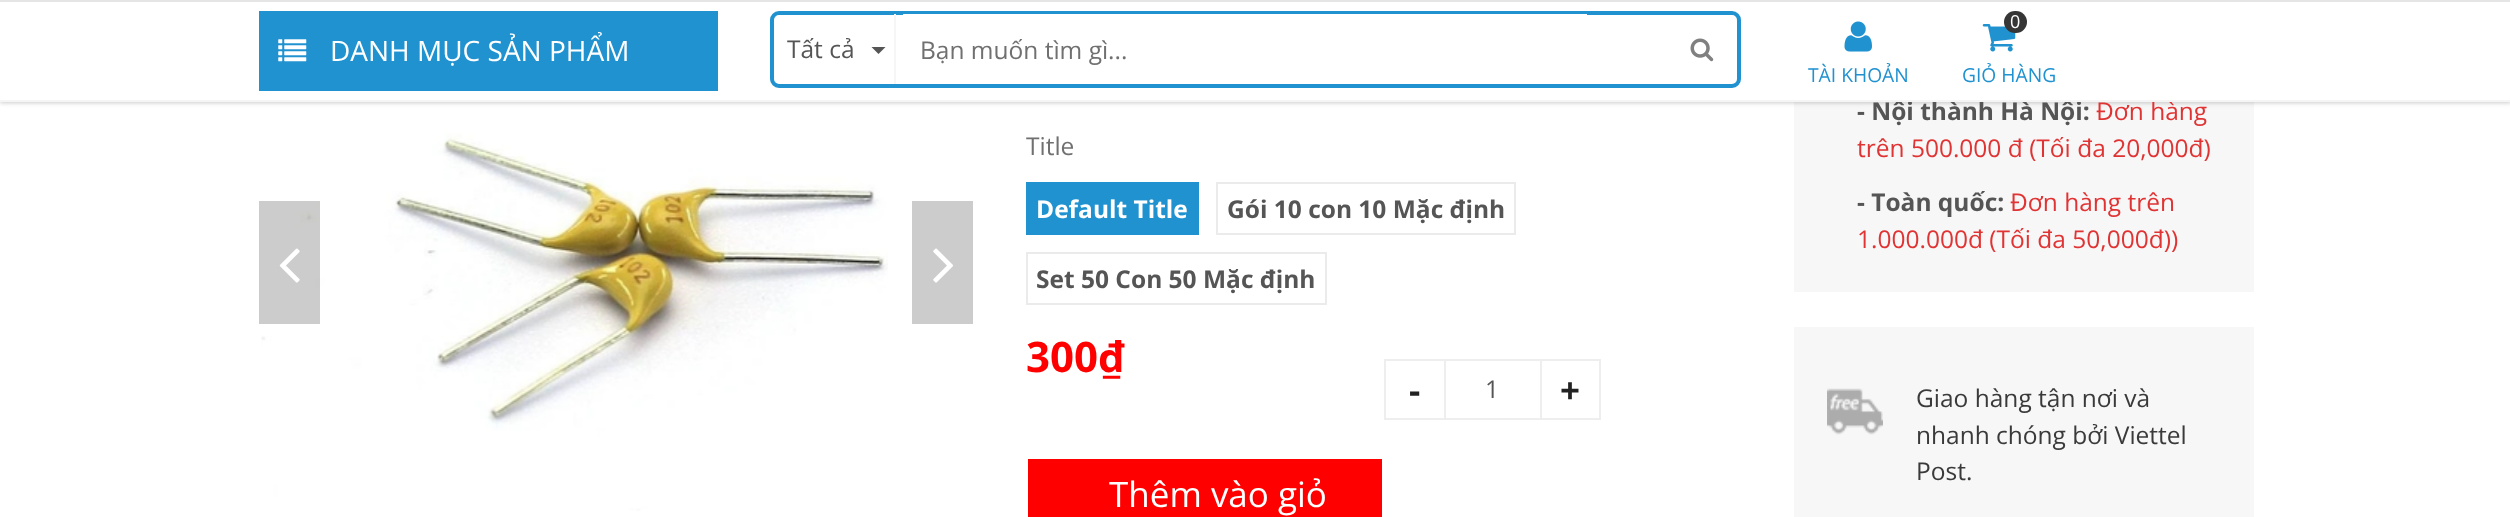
(async () => {
const canvas = document.querySelector("canvas")
canvas.width = 2510
canvas.height = 517
const c = canvas.getContext("2d")
c.miterLimit = 4
c.fontKerning = "normal"
function T(s,x,y){c.fillText(s,x,y)}
function R(x,y,w,h){c.fillRect(x,y,w,h)}
function Q(x,y,w,h,r){c.beginPath();c.roundRect(x,y,w,h,r);c.fill()}
async function I(src,x,y,w,h){const img=new Image();img.src=src;await img.decode();c.drawImage(img,x,y,w,h)}
let path
c.fillStyle="#fff"
R(0,0,2510,517)
await I("5.png",261,102,627,409)
c.fillStyle="#f7f7f7"
R(1794,102,460,190)
c.fillStyle="#00000033"
c.filter="blur(2px)"
c.beginPath()
c.rect(0,2,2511,101)
c.fill()
c.filter="none"
c.fillStyle="#fff"
R(0,2,2510,98)
c.fillStyle="#e5e5e5"
R(0,0,2510,2)
c.font="bold 24.5px Open Sans"
c.fillStyle="#555"
T("- Nội thành Hà Nội:",1857,120)
c.font="24.5px Open Sans"
c.fillStyle="#e03333"
T("Đơn hàng",2096,120)
c.fillStyle="#f5f5f5"
R(0,100,2510,2)
c.fillStyle="#2192d0"
R(259,11,459,80)
await I("1.png",278,39,29,23)
c.font="28px Open Sans"
c.fillStyle="#fff"
T("DANH MỤC SẢN PHẨM",330,61)
c.beginPath()
c.roundRect(772,13,967,73,7)
c.strokeStyle="#2192d0"
c.lineWidth=4
c.stroke()
c.fillStyle="#f6f6f6"
R(894,14,2,70)
c.font="24.5px Open Sans"
c.fillStyle="#555"
T("Tất cả",787,58)
path = new Path2D("M871.5 47h14l-7 7z")
c.fill(path)
c.fillStyle="#fff"
R(903,14,684,1)
c.fillStyle="#707070"
T("Bạn muốn tìm gì...",920,59)
await I("2.png",1690,38,24,24)
await I("3.png",1844,21,28,31)
c.font="19.25px Open Sans"
c.fillStyle="#2192d0"
T("TÀI KHOẢN",1808,82)
await I("4.png",1982,24,34,28)
c.fillStyle="#363636"
Q(2004,11,23,22,11)
c.font="18px Open Sans"
c.fillStyle="#fff"
T("0",2010,28)
c.font="19.25px Open Sans"
c.fillStyle="#2192d0"
T("GIỎ HÀNG",1962,82)
c.fillStyle="#00000033"
R(259,201,61,123)
await I("6.png",279,248,21,35)
c.fillStyle="#ccc"
R(912,201,61,123)
await I("7.png",933,248,20,35)
c.font="24.5px Open Sans"
c.fillStyle="#707070"
T("Title",1026,155)
c.fillStyle="#2192d0"
R(1026,182,173,53)
c.font="bold 24.5px Open Sans"
c.fillStyle="#fff"
T("Default Title",1036,218)
c.strokeStyle="#ebebeb"
c.lineWidth=2
c.strokeRect(1217,183,298,51)
c.fillStyle="#555"
T("Gói 10 con 10 Mặc định",1227,218)
c.strokeRect(1027,253,299,51)
T("Set 50 Con 50 Mặc định",1036,288)
c.font="bold 42px Open Sans"
c.fillStyle="#f00"
T("300₫",1026,372)
c.strokeStyle="#eee"
c.strokeRect(1385,360,60,59)
c.font="bold 35px Open Sans"
c.fillStyle="#222"
T("-",1409,403)
c.strokeRect(1445,360,96,59)
c.font="24.5px Open Sans"
c.fillStyle="#555"
T("1",1485,398)
c.strokeRect(1541,360,59,59)
c.font="bold 35px Open Sans"
c.fillStyle="#222"
T("+",1560,403)
c.fillStyle="#f00"
R(1028,459,354,58)
c.font="35px Open Sans"
c.fillStyle="#fff"
T("Thêm vào giỏ",1109,507)
c.font="24.5px Open Sans"
c.fillStyle="#e03333"
T("trên 500.000 đ (Tối đa 20,000đ)",1857,157)
c.font="bold 24.5px Open Sans"
c.fillStyle="#555"
T("- Toàn quốc:",1857,211)
c.font="24.5px Open Sans"
c.fillStyle="#e03333"
T("Đơn hàng trên",2010,211)
T("1.000.000đ (Tối đa 50,000đ))",1857,248)
c.fillStyle="#f7f7f7"
R(1794,327,460,190)
await I("8.png",1827,388,56,47)
c.fillStyle="#3a3a3a"
T("Giao hàng tận nơi và",1916,407)
T("nhanh chóng bởi Viettel",1916,444)
T("Post.",1916,480)
})()
